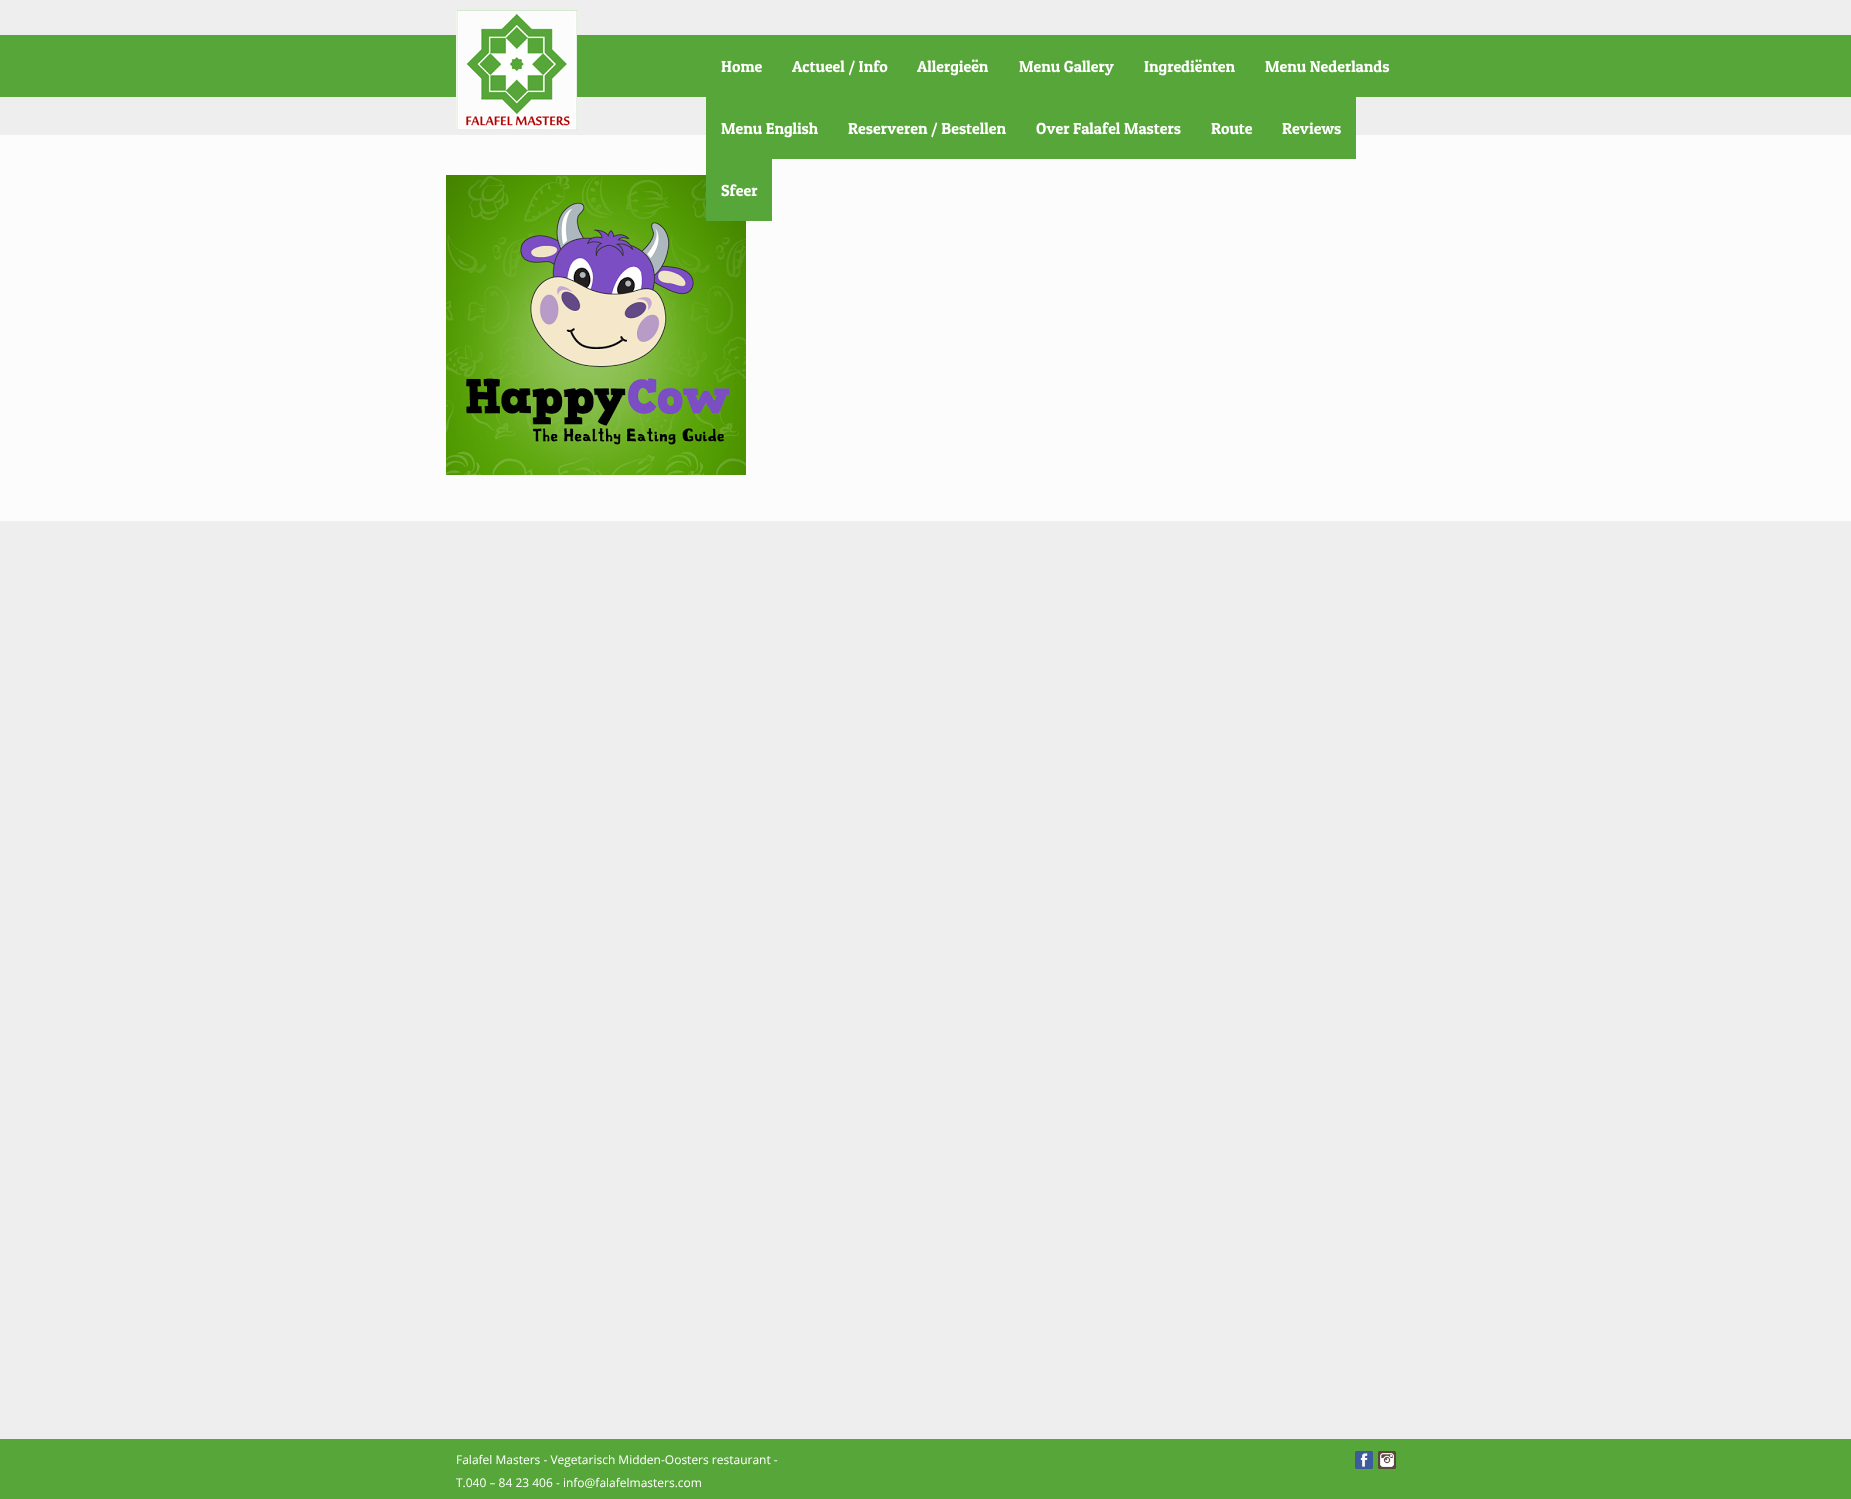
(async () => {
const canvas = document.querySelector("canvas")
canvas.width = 1851
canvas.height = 1499
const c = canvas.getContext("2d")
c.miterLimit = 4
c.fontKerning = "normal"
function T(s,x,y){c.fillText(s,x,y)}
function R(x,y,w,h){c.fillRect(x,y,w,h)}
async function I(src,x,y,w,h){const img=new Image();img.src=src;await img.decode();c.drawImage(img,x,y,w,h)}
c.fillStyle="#eee"
R(0,0,1851,1499)
c.fillStyle="#57a639"
R(0,35,1851,62)
await I("1.png",456,10,121,120)
c.font="16px Patua One"
c.fillStyle="#fff"
T("Home",721,72)
T("Actueel / Info",792,72)
T("Allergieën",917,72)
T("Menu Gallery",1019,72)
T("Ingrediënten",1144,72)
T("Menu Nederlands",1265,72)
c.fillStyle="#fcfcfc"
R(0,135,1851,386)
c.fillStyle="#57a639"
R(706,97,650,62)
c.fillStyle="#fff"
T("Menu English",721,134)
T("Reserveren / Bestellen",848,134)
T("Over Falafel Masters",1036,134)
T("Route",1211,134)
T("Reviews",1282,134)
await I("2.png",446,175,300,300)
c.fillStyle="#57a639"
R(706,159,66,62)
c.fillStyle="#fff"
T("Sfeer",721,196)
c.fillStyle="#57a639"
R(0,1439,1851,60)
c.font="12px Open Sans"
c.fillStyle="#fff"
T("Falafel Masters - Vegetarisch Midden-Oosters restaurant -",456,1464)
T("T.040 – 84 23 406 - info@falafelmasters.com",456,1487)
await I("3.png",1355,1451,18,18)
await I("4.png",1378,1451,18,18)
})()
